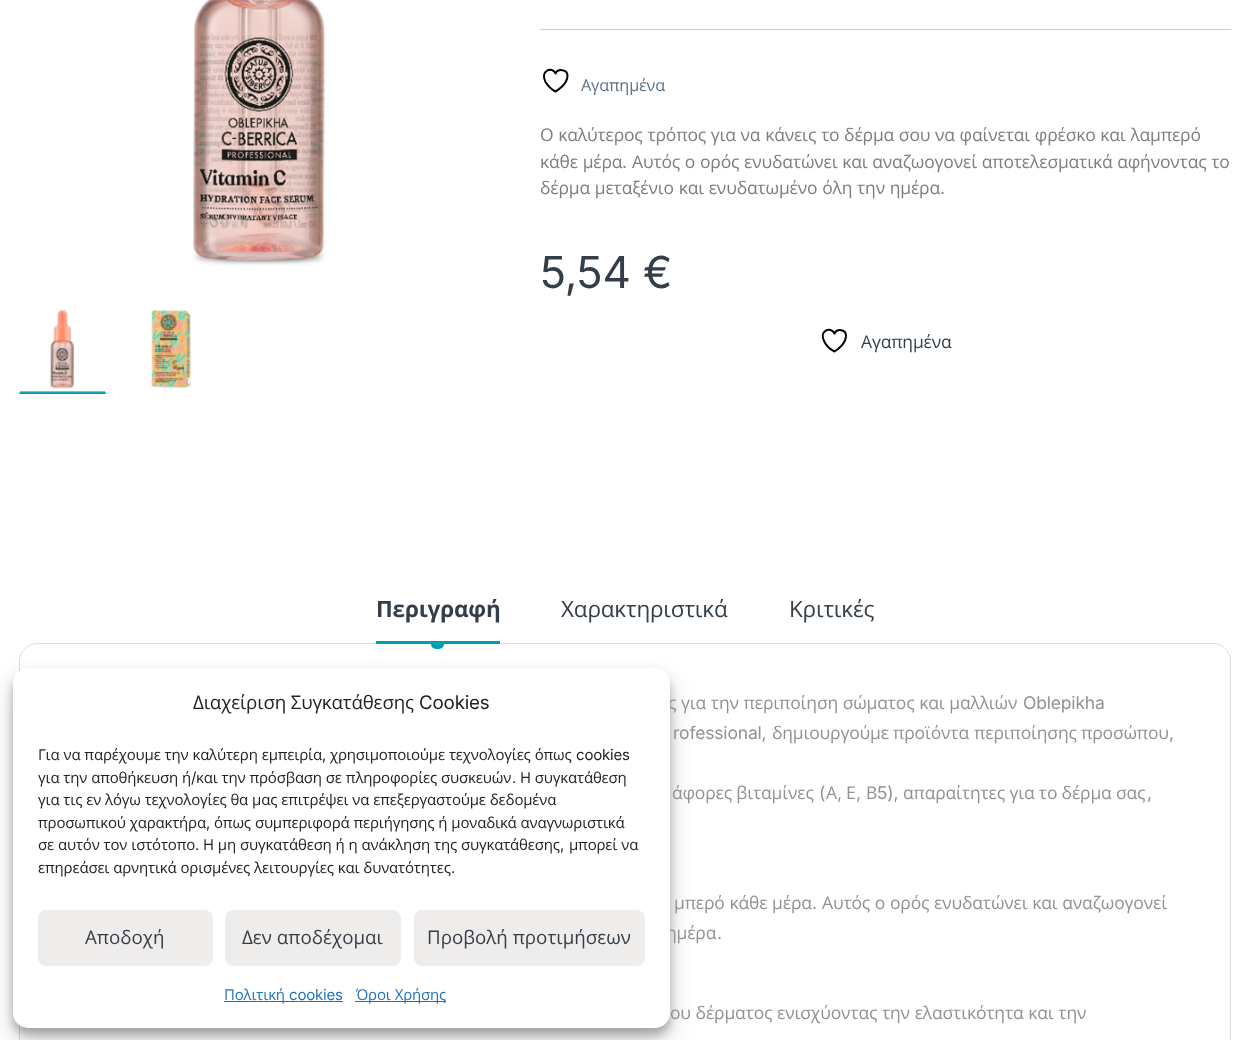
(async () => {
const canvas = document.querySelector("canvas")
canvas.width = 1249
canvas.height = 1040
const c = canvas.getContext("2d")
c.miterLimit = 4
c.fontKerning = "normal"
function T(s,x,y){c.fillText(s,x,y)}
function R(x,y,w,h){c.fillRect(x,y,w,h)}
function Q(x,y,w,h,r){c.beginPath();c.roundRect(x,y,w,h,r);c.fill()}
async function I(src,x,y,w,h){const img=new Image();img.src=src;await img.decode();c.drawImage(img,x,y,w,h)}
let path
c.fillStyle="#fff"
R(0,0,1249,1040)
c.beginPath()
c.roundRect(19.5,643.5,1211,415,17.5)
c.strokeStyle="#ddd"
c.stroke()
c.fillStyle="#0000003b"
c.filter="blur(4px)"
c.beginPath()
c.roundRect(13,675,657,360,15)
c.fill()
c.filter="none"
c.fillStyle="#009eb1"
R(376,641,124,3)
c.beginPath()
c.roundRect(431,644,13,5,[0,0,5,5])
c.fill()
c.fillStyle="#00000030"
c.filter="blur(12.5px)"
c.beginPath()
c.roundRect(13,680,657,360,15)
c.fill()
c.filter="none"
c.letterSpacing="-0.18px"
c.wordSpacing="0.4px"
c.font="17.5px Open Sans"
c.fillStyle="#919191"
T("ς για την περιποίηση σώματος και μαλλιών",668,709)
T("ημέρα",666,939)
c.fillStyle="#fff"
Q(13,668,657,360,15)
c.wordSpacing="0px"
c.font="18.75px Open Sans"
c.fillStyle="#222"
T("Διαχείριση Συγκατάθεσης",193,709)
c.font="18.75px Inter"
T("Cookies",419,709)
c.wordSpacing="0.25px"
c.font="15px Open Sans"
T("Για να παρέχουμε την καλύτερη εμπειρία",38,760)
c.wordSpacing="0px"
c.font="15px Inter"
T(",",322,760)
c.wordSpacing="0.25px"
c.font="15px Open Sans"
T("χρησιμοποιούμε τεχνολογίες όπως",330,760)
c.wordSpacing="0px"
c.font="15px Inter"
T("cookies",576,760)
c.wordSpacing="0.25px"
c.font="15px Open Sans"
T("για την αποθήκευση ή",38,783)
c.wordSpacing="0px"
c.font="15px Inter"
T("/",191,783)
c.wordSpacing="0.25px"
c.font="15px Open Sans"
T("και την πρόσβαση σε πληροφορίες συσκευών",196,783)
c.wordSpacing="0px"
c.font="15px Inter"
T(".",512,783)
c.wordSpacing="0.25px"
c.font="15px Open Sans"
T("Η συγκατάθεση",520,783)
T("για τις εν λόγω τεχνολογίες θα μας επιτρέψει να επεξεργαστούμε δεδομένα",38,805)
T("προσωπικού χαρακτήρα",38,828)
c.wordSpacing="0px"
c.font="15px Inter"
T(",",206,828)
c.wordSpacing="0.25px"
c.font="15px Open Sans"
T("όπως συμπεριφορά περιήγησης ή μοναδικά αναγνωριστικά",214,828)
T("σε αυτόν τον ιστότοπο",38,850)
c.wordSpacing="0px"
c.font="15px Inter"
T(".",195,850)
c.wordSpacing="0.25px"
c.font="15px Open Sans"
T("Η μη συγκατάθεση ή η ανάκληση της συγκατάθεσης",203,850)
c.wordSpacing="0px"
c.font="15px Inter"
T(",",560,850)
c.wordSpacing="0.25px"
c.font="15px Open Sans"
T("μπορεί να",569,850)
T("επηρεάσει αρνητικά ορισμένες λειτουργίες και δυνατότητες",38,873)
c.wordSpacing="0px"
c.font="15px Inter"
T(".",451,873)
c.fillStyle="#efecec"
c.beginPath()
c.roundRect(38.5,910.5,174,55,7.5)
c.fill()
c.strokeStyle="#efecec"
c.stroke()
c.letterSpacing="0px"
c.font="18.75px Open Sans"
c.fillStyle="#333e48"
T("Αποδοχή",85,944)
c.fillStyle="#efecec"
c.beginPath()
c.roundRect(225.5,910.5,175,55,7.5)
c.fill()
c.stroke()
c.fillStyle="#333e48"
T("Δεν αποδέχομαι",242,944)
c.fillStyle="#efecec"
c.beginPath()
c.roundRect(414.5,910.5,230,55,7.5)
c.fill()
c.stroke()
c.fillStyle="#333e48"
T("Προβολή προτιμήσεων",427,944)
c.fillStyle="#1e73be"
R(224,1001,119,1)
c.letterSpacing="-0.18px"
c.font="15px Open Sans"
T("Πολιτική",224,1000)
c.font="15px Inter"
T("cookies",289,1000)
R(355,1001,91,1)
c.wordSpacing="0.25px"
c.font="15px Open Sans"
T("Όροι Χρήσης",356,1000)
await I("1.png",191,0,136,266)
c.fillStyle="#009eb1"
path = new Path2D("M106 394h-87l1-3h85z")
c.fill(path)
c.fillStyle="#fff"
path = new Path2D("M19 394v-89l1 1v85z")
c.fill(path)
await I("2.png",20,310,85,83)
await I("3.png",151,310,41,79)
c.fillStyle="#fafafa"
R(557,0,3,1)
c.fillStyle="#cccfd1"
R(540,29,691,1)
path = new Path2D("M567.5 75.5c0-6-9.5-7.5-12-2c-3-7.5-16-3-10 8.5c2.5 4 6 7.5 10 9.5c0 0 12-6.5 12-16z")
c.strokeStyle="#000"
c.lineWidth=2
c.lineCap="round"
c.lineJoin="round"
c.stroke(path)
c.wordSpacing="0px"
c.font="16.25px Open Sans"
c.fillStyle="#5d7184"
T("Αγαπημένα",581,91)
c.wordSpacing="0.4px"
c.font="17.5px Open Sans"
c.fillStyle="#7d7d7d"
T("Ο καλύτερος τρόπος για να κάνεις το δέρμα σου να φαίνεται φρέσκο και λαμπερό",540,141)
T("κάθε μέρα",540,168)
c.wordSpacing="0px"
c.font="17.5px Inter"
T(".",622,168)
c.wordSpacing="0.4px"
c.font="17.5px Open Sans"
T("Αυτός ο ορός ενυδατώνει και αναζωογονεί αποτελεσματικά αφήνοντας το",632,168)
T("δέρμα μεταξένιο και ενυδατωμένο όλη την ημέρα",540,194)
c.wordSpacing="0px"
c.font="17.5px Inter"
T(".",940,194)
c.font="44px Inter"
c.fillStyle="#333e48"
T("5,54 €",540,288)
path = new Path2D("M846 335.5c0-6-9-7.5-11.5-2c-3.5-7.5-16.5-3-10 8.5c2 4 6 7.5 10 9.5c0 0 11.5-6.5 11.5-16z")
c.stroke(path)
c.font="17.5px Open Sans"
T("Αγαπημένα",861,348)
c.font="bold 22.5px Open Sans"
T("Περιγραφή",376,617)
c.font="22.5px Open Sans"
T("Χαρακτηριστικά",561,617)
T("Κριτικές",789,617)
c.font="17.5px Inter"
c.fillStyle="#919191"
T("Oblepikha",1023,709)
T("rofessional,",673,739)
c.font="17.5px Open Sans"
T("δημιουργούμε",772,739)
T("προϊόντα",893,739)
T("περιποίησης",974,739)
T("προσώπου",1081,739)
c.font="17.5px Inter"
T(",",1169,739)
c.font="17.5px Open Sans"
T("άφορες βιταμίνες",672,799)
c.font="17.5px Inter"
T("(",819,799)
c.font="17.5px Open Sans"
T("Α",826,799)
T("Ε",846,799)
T("Β",866,799)
c.font="17.5px Inter"
T("5),",877,799)
c.font="17.5px Open Sans"
T("απαραίτητες για το δέρμα σας",903,799)
c.font="17.5px Inter"
T(",",837,799)
T(",",856,799)
T(",",1147,799)
c.wordSpacing="0.4px"
c.font="17.5px Open Sans"
T("μπερό κάθε μέρα",674,909)
c.wordSpacing="0px"
c.font="17.5px Inter"
T(".",812,909)
c.wordSpacing="0.4px"
c.font="17.5px Open Sans"
T("Αυτός ο ορός ενυδατώνει και αναζωογονεί",822,909)
c.wordSpacing="0px"
c.font="17.5px Inter"
T(".",717,939)
c.wordSpacing="0.4px"
c.font="17.5px Open Sans"
T("ου δέρματος ενισχύοντας την ελαστικότητα και την",670,1019)
})()
